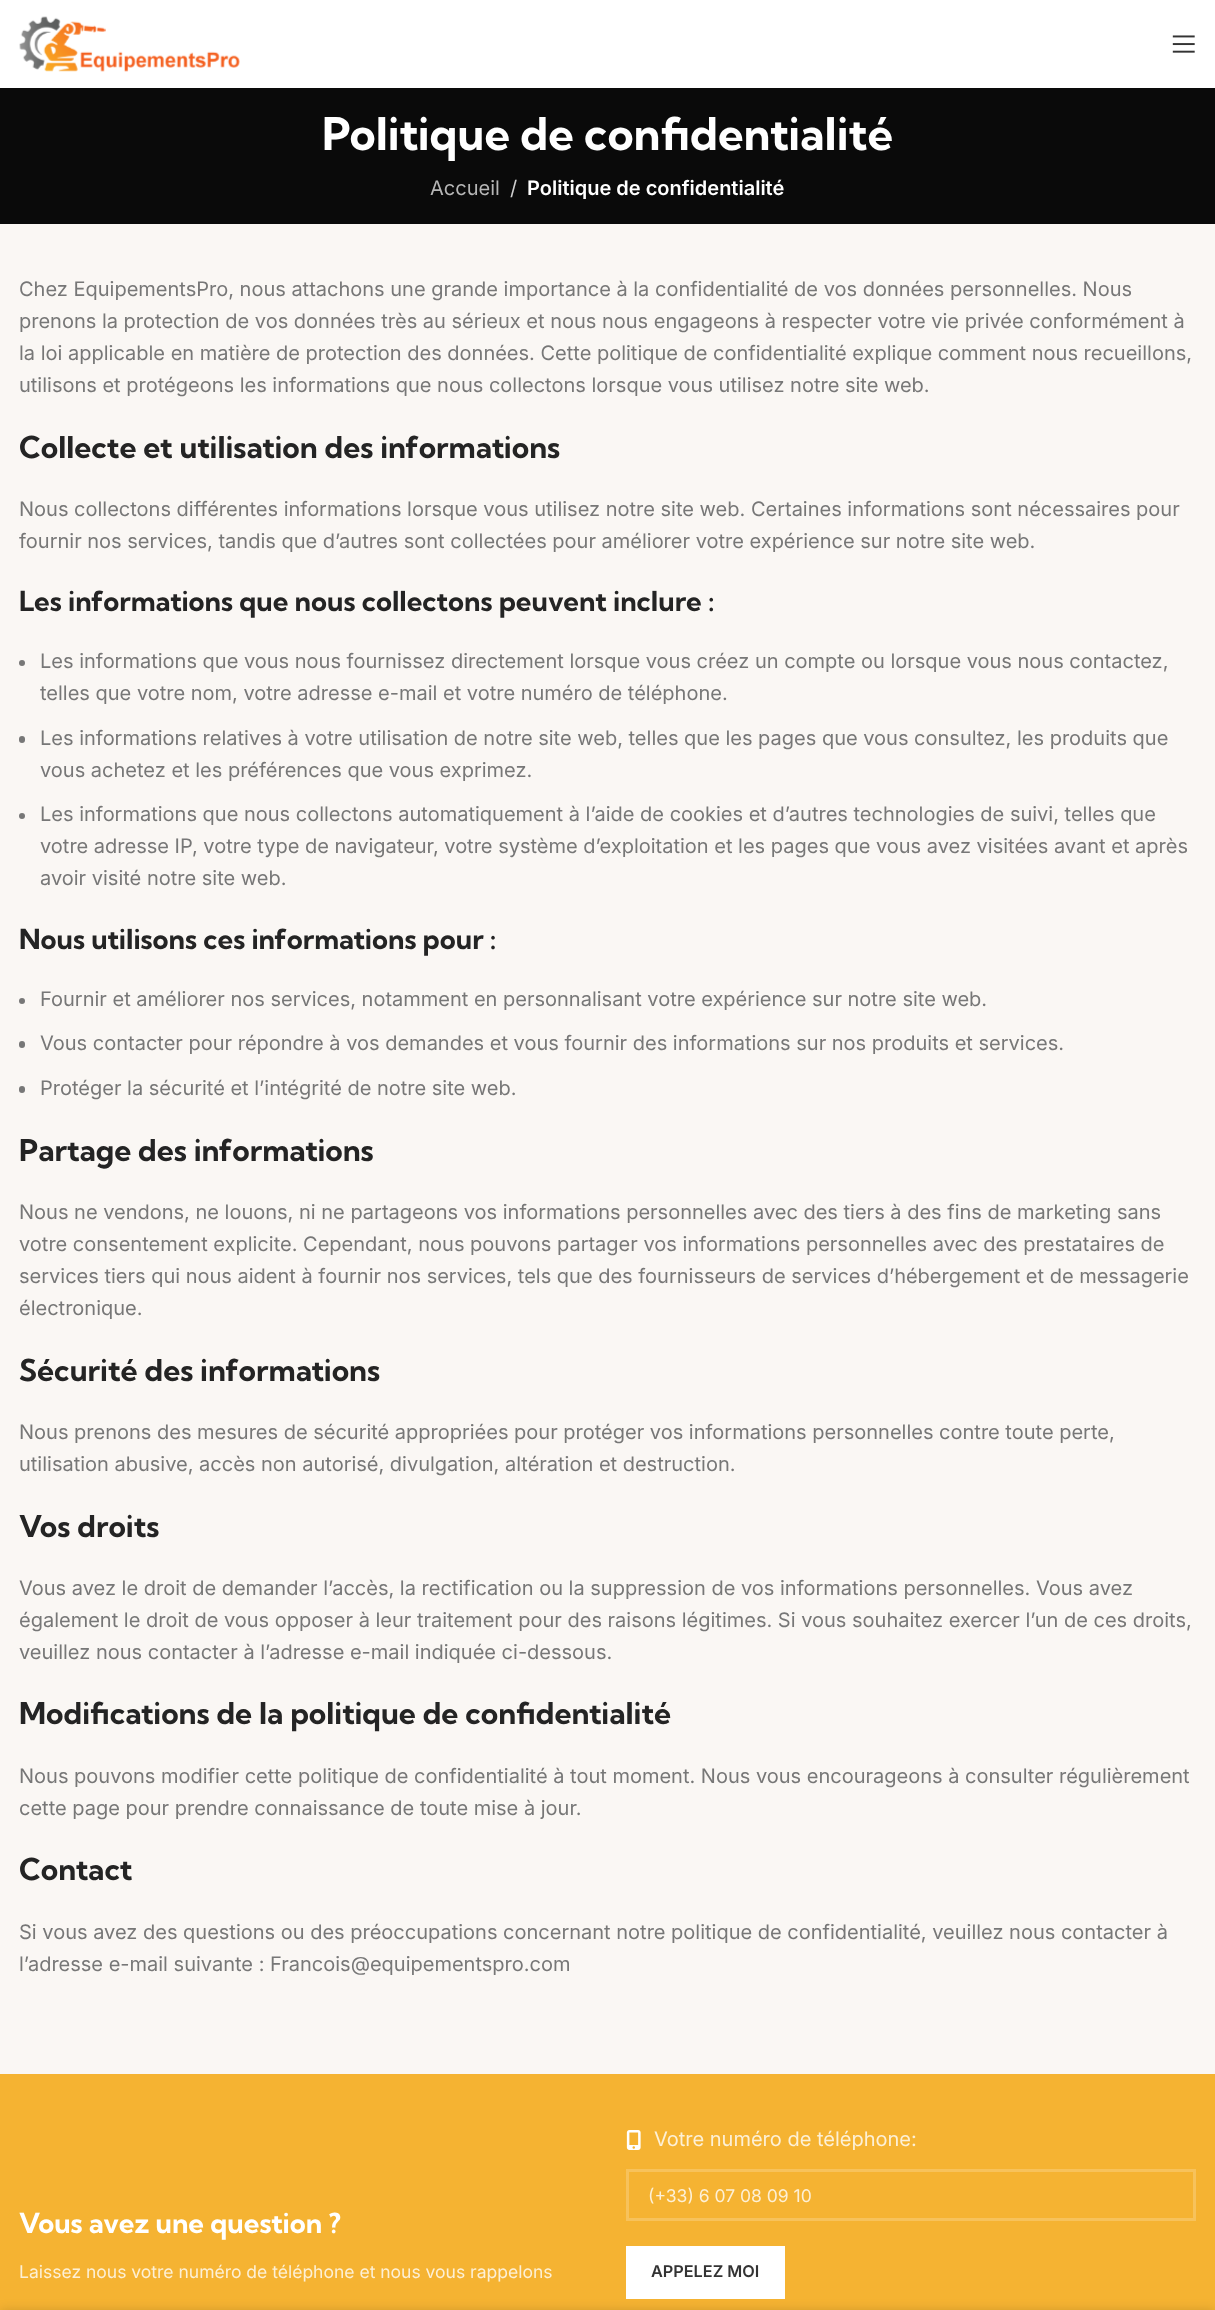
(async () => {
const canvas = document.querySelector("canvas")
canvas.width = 1215
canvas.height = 2310
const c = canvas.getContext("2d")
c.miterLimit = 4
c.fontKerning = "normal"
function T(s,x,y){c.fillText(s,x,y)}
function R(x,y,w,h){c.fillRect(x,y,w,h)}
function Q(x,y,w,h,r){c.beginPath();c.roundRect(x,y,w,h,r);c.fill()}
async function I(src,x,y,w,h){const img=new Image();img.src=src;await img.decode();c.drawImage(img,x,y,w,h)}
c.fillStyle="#fff"
R(0,0,1215,2310)
await I("1.png",19,16,221,56)
await I("2.png",1172,35,23,18)
c.fillStyle="#faf7f4"
R(0,224,1215,1850)
c.fillStyle="#0a0a0a"
R(0,88,1215,136)
c.font="bold 45px Kumbh Sans"
c.fillStyle="#fff"
T("Politique de confidentialité",322,150)
c.font="20px Inter"
c.fillStyle="#b6b6b6"
T("Accueil",430,195)
c.fillStyle="#cecece"
T("/",510,195)
c.font="600 20px Inter"
c.fillStyle="#fff"
T("Politique de confidentialité",527,195)
c.font="20px Inter"
c.fillStyle="#777"
T("Chez EquipementsPro, nous attachons une grande importance à la confidentialité de vos données personnelles. Nous",19,296)
T("prenons la protection de vos données très au sérieux et nous nous engageons à respecter votre vie privée conformément à",19,328)
T("la loi applicable en matière de protection des données. Cette politique de confidentialité explique comment nous recueillons,",19,360)
T("utilisons et protégeons les informations que nous collectons lorsque vous utilisez notre site web.",19,392)
c.font="bold 30px Kumbh Sans"
c.fillStyle="#242424"
T("Collecte et utilisation des informations",19,458)
c.font="20px Inter"
c.fillStyle="#777"
T("Nous collectons différentes informations lorsque vous utilisez notre site web. Certaines informations sont nécessaires pour",19,516)
T("fournir nos services, tandis que d’autres sont collectées pour améliorer votre expérience sur notre site web.",19,548)
c.font="bold 27.5px Kumbh Sans"
c.fillStyle="#242424"
T("Les informations que nous collectons peuvent inclure :",19,611)
c.fillStyle="#777"
c.beginPath()
c.arc(22,663,3,0,7)
c.fill()
c.font="20px Inter"
T("Les informations que vous nous fournissez directement lorsque vous créez un compte ou lorsque vous nous contactez,",40,668)
T("telles que votre nom, votre adresse e-mail et votre numéro de téléphone.",40,700)
Q(19,736,6,7,3)
T("Les informations relatives à votre utilisation de notre site web, telles que les pages que vous consultez, les produits que",40,745)
T("vous achetez et les préférences que vous exprimez.",40,777)
c.beginPath()
c.arc(22,816,3,0,7)
c.fill()
T("Les informations que nous collectons automatiquement à l’aide de cookies et d’autres technologies de suivi, telles que",40,821)
T("votre adresse IP, votre type de navigateur, votre système d’exploitation et les pages que vous avez visitées avant et après",40,853)
T("avoir visité notre site web.",40,885)
c.font="bold 27.5px Kumbh Sans"
c.fillStyle="#242424"
T("Nous utilisons ces informations pour :",19,949)
c.fillStyle="#777"
c.beginPath()
c.arc(22,1001,3,0,7)
c.fill()
c.font="20px Inter"
T("Fournir et améliorer nos services, notamment en personnalisant votre expérience sur notre site web.",40,1006)
Q(19,1041,6,7,3)
T("Vous contacter pour répondre à vos demandes et vous fournir des informations sur nos produits et services.",40,1050)
Q(19,1086,6,7,3)
T("Protéger la sécurité et l’intégrité de notre site web.",40,1095)
c.font="bold 30px Kumbh Sans"
c.fillStyle="#242424"
T("Partage des informations",19,1161)
c.font="20px Inter"
c.fillStyle="#777"
T("Nous ne vendons, ne louons, ni ne partageons vos informations personnelles avec des tiers à des fins de marketing sans",19,1219)
T("votre consentement explicite. Cependant, nous pouvons partager vos informations personnelles avec des prestataires de",19,1251)
T("services tiers qui nous aident à fournir nos services, tels que des fournisseurs de services d’hébergement et de messagerie",19,1283)
T("électronique.",19,1315)
c.font="bold 30px Kumbh Sans"
c.fillStyle="#242424"
T("Sécurité des informations",19,1381)
c.font="20px Inter"
c.fillStyle="#777"
T("Nous prenons des mesures de sécurité appropriées pour protéger vos informations personnelles contre toute perte,",19,1439)
T("utilisation abusive, accès non autorisé, divulgation, altération et destruction.",19,1471)
c.font="bold 30px Kumbh Sans"
c.fillStyle="#242424"
T("Vos droits",19,1537)
c.font="20px Inter"
c.fillStyle="#777"
T("Vous avez le droit de demander l’accès, la rectification ou la suppression de vos informations personnelles. Vous avez",19,1595)
T("également le droit de vous opposer à leur traitement pour des raisons légitimes. Si vous souhaitez exercer l’un de ces droits,",19,1627)
T("veuillez nous contacter à l’adresse e-mail indiquée ci-dessous.",19,1659)
c.font="bold 30px Kumbh Sans"
c.fillStyle="#242424"
T("Modifications de la politique de confidentialité",19,1724)
c.font="20px Inter"
c.fillStyle="#777"
T("Nous pouvons modifier cette politique de confidentialité à tout moment. Nous vous encourageons à consulter régulièrement",19,1783)
T("cette page pour prendre connaissance de toute mise à jour.",19,1815)
c.font="bold 30px Kumbh Sans"
c.fillStyle="#242424"
T("Contact",19,1880)
c.font="20px Inter"
c.fillStyle="#777"
T("Si vous avez des questions ou des préoccupations concernant notre politique de confidentialité, veuillez nous contacter à",19,1939)
T("l’adresse e-mail suivante : Francois@equipementspro.com",19,1971)
c.fillStyle="#f5b332"
R(0,2074,1215,236)
c.font="bold 27.5px Kumbh Sans"
c.fillStyle="#fff"
T("Vous avez une question ?",19,2233)
c.font="17.5px Inter"
c.fillStyle="#fdf0d6"
T("Laissez nous votre numéro de téléphone et nous vous rappelons",19,2278)
await I("3.png",626,2130,15,20)
c.font="20px Inter"
T("Votre numéro de téléphone:",654,2146)
c.strokeStyle="#f7c25b"
c.lineWidth=3
c.strokeRect(627.5,2170.5,567,49)
c.font="17.5px Inter"
T("(+33) 6 07 08 09 10",648,2202)
c.fillStyle="#fff"
R(626,2246,159,53)
c.font="600 16.25px Inter"
c.fillStyle="#333"
T("APPELEZ MOI",651,2277)
c.fillStyle="#00000024"
c.filter="blur(5.5px)"
c.beginPath()
c.rect(0,2310,1215,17)
c.fill()
c.filter="none"
})()
